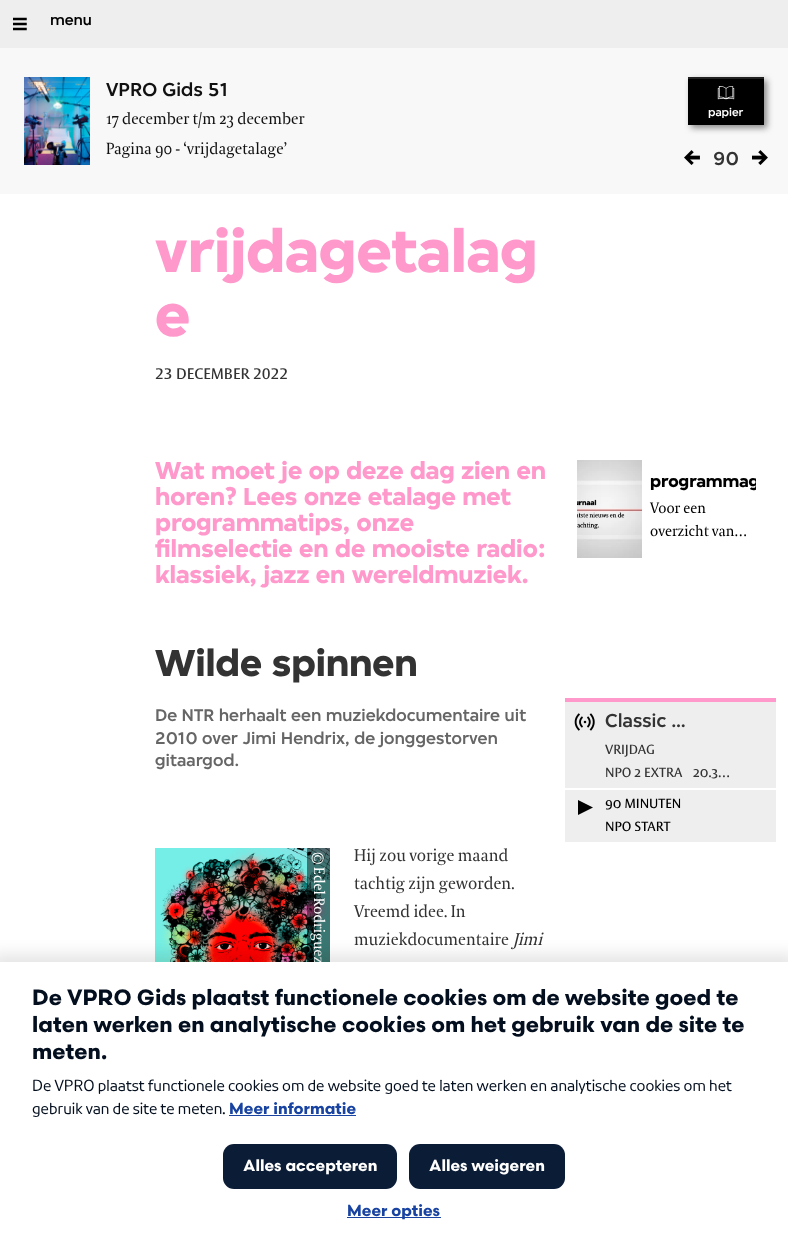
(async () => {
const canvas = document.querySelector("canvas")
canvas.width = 788
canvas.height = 1247
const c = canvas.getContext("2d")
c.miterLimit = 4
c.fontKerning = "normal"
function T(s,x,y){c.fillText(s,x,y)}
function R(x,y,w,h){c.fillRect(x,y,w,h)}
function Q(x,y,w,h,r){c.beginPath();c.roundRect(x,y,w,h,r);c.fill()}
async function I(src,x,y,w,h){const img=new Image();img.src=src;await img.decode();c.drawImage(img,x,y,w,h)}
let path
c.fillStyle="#fff"
R(0,0,788,1247)
c.fillStyle="#eee"
R(0,0,788,48)
await I("1.png",13,17,14,14)
c.font="500 16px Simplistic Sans"
c.fillStyle="#000"
T("menu",50,25)
c.fillStyle="#f8f8f8"
R(0,48,788,146)
await I("2.png",24,77,66,88)
c.font="500 20px Simplistic Sans"
c.fillStyle="#111"
T("VPRO Gids 51",106,96)
c.font="16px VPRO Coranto"
T("17 december t/m 23 december",106,124)
T("Pagina 90 - ‘vrijdagetalage’",106,154)
c.fillStyle="#888"
c.filter="blur(3px)"
c.beginPath()
c.rect(691,80,76,48)
c.fill()
c.filter="none"
c.fillStyle="#000"
R(688,79,76,46)
c.fillStyle="#222"
R(688,77,76,2)
await I("3.png",717,86,18,14)
c.font="500 12px Simplistic Sans"
c.fillStyle="#fff"
T("papier",708,116)
await I("4.png",684,150,16,15)
c.font="500 20px Simplistic Sans"
c.fillStyle="#333"
T("90",713,165)
await I("5.png",752,150,16,15)
c.font="bold 64px Simplistic Sans"
c.fillStyle="#f9c"
T("vrijdagetalag",155,272)
T("e",155,336)
c.font="15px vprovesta"
c.fillStyle="#333"
T("23 DECEMBER 2022",155,379)
c.font="bold 26px Simplistic Sans"
c.fillStyle="#f9c"
T("Wat moet je op deze dag zien en",155,479)
T("horen? Lees onze etalage met",155,505)
T("programmatips, onze",155,531)
T("filmselectie en de mooiste radio:",155,557)
T("klassiek, jazz en wereldmuziek.",155,583)
await I("6.png",577,460,65,98)
c.save()
c.beginPath()
c.rect(650,473,106,22)
c.clip()
c.font="bold 18px Simplistic Sans"
c.fillStyle="#000"
T("programmag",650,487)
c.restore()
c.font="15px VPRO Coranto"
c.fillStyle="#000"
T("Voor een",650,513)
T("overzicht van…",650,536)
c.font="bold 40px Simplistic Sans"
c.fillStyle="#333"
T("Wilde spinnen",155,676)
c.font="500 18px Simplistic Sans"
c.fillStyle="#666"
T("De NTR herhaalt een muziekdocumentaire uit",155,721)
T("2010 over Jimi Hendrix, de jonggestorven",155,744)
T("gitaargod.",155,766)
c.fillStyle="#f9c"
R(565,698,211,4)
c.fillStyle="#eee"
R(565,702,211,140)
await I("7.png",574,713,21,18)
c.font="500 20px Simplistic Sans"
c.fillStyle="#333"
T("Classic …",605,727)
c.font="13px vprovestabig"
T("VRIJDAG",605,754)
T("NPO 2 EXTRA",605,777)
T("20.3…",693,777)
c.fillStyle="#fff"
R(565,788,211,2)
c.fillStyle="#000"
path = new Path2D("M578 800v15l15-7.5z")
c.fill(path)
T("90 MINUTEN",605,808)
T("NPO START",605,831)
await I("8.png",155,848,175,114)
c.fillStyle="#00000080"
R(307,848,23,114)
c.font="15px VPRO Coranto"
c.fillStyle="#fff"
c.save()
c.translate(314,852)
c.rotate(90 * Math.PI / 180)
c.fillText("© Edel Rodriguez",0,0)
c.restore()
c.font="17px VPRO Coranto"
c.fillStyle="#333"
T("Hij zou vorige maand",354,861)
T("tachtig zijn geworden.",354,889)
T("Vreemd idee. In",354,917)
T("muziekdocumentaire",354,945)
c.font="italic 17px VPRO Coranto"
T("Jimi",513,945)
c.fillStyle="#0000001a"
c.filter="blur(7.5px)"
c.beginPath()
c.rect(-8,954,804,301)
c.fill()
c.filter="none"
c.fillStyle="#fff"
R(0,962,788,285)
c.font="bold 22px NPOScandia"
c.fillStyle="#030e1e"
T("De VPRO Gids plaatst functionele cookies om de website goed te",32,1005)
T("laten werken en analytische cookies om het gebruik van de site te",32,1032)
T("meten.",32,1059)
c.font="16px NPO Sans"
T("De VPRO plaatst functionele cookies om de website goed te laten werken en analytische cookies om het",32,1091)
T("gebruik van de site te meten.",32,1114)
c.font="bold 16px NPOScandia"
c.fillStyle="#1843a1"
T("Meer informatie",229,1114)
R(229,1115,127,1)
c.fillStyle="#0b1c36"
Q(223,1144,174,45,11)
c.fillStyle="#fff"
T("Alles accepteren",243,1171)
c.fillStyle="#0b1c36"
Q(409,1144,156,45,11)
c.fillStyle="#fff"
T("Alles weigeren",429,1171)
c.fillStyle="#1843a1"
R(347,1217,94,1)
T("Meer opties",347,1216)
})()
